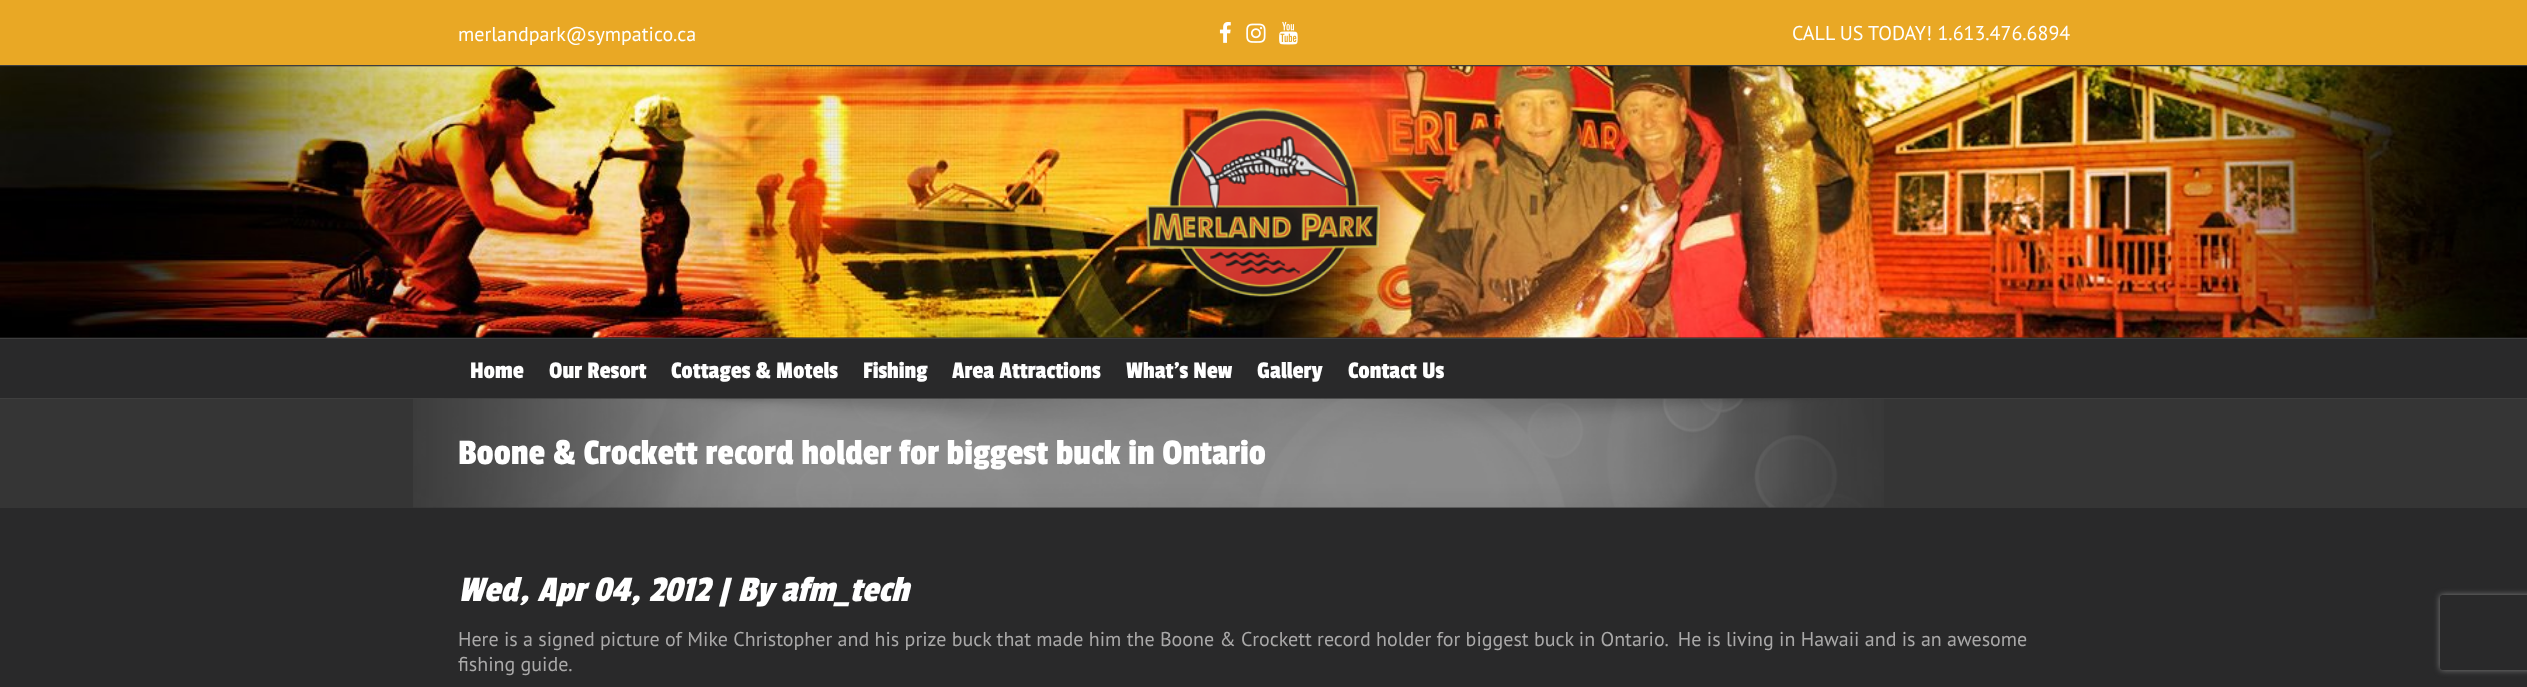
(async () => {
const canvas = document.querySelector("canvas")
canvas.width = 2527
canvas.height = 687
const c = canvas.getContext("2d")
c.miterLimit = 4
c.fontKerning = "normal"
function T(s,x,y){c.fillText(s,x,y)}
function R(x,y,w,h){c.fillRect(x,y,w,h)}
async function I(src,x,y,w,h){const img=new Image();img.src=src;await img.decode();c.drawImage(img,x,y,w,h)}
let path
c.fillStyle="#242424"
R(0,0,2527,687)
c.fillStyle="#e9a825"
R(0,0,2527,65)
c.fillStyle="#3e3e3e"
R(0,65,2527,1)
c.font="20px PT Sans"
c.fillStyle="#fff"
T("merlandpark@sympatico.ca",458,41)
await I("1.png",1219,22,12,21)
await I("2.png",1246,23,20,20)
await I("3.png",1279,21,19,24)
T("CALL US TODAY! 1.613.476.6894",1792,40)
await I("4.png",0,66,2527,272)
await I("5.png",1146,107,235,190)
c.fillStyle="#29292a"
R(0,339,2527,59)
c.fillStyle="#3e3e3e"
R(0,338,2527,1)
R(0,398,2527,1)
c.font="25px Passion One"
c.fillStyle="#fff"
T("Home",470,378)
T("Our Resort",549,378)
T("Cottages & Motels",671,378)
T("Fishing",863,378)
T("Area Attractions",952,378)
T("What’s New",1126,378)
T("Gallery",1257,378)
T("Contact Us",1348,378)
c.fillStyle="#29292a"
R(0,508,2527,179)
c.fillStyle="#353535"
R(0,399,2527,109)
await I("6.png",413,398,1471,110)
c.font="37.5px Passion One"
c.fillStyle="#fff"
T("Boone & Crockett record holder for biggest buck in Ontario",458,464)
c.font="italic 37.5px Passion One"
T("Wed, Apr 04, 2012 | By afm_tech",458,601)
c.font="20px PT Sans"
c.fillStyle="#aaa9a9"
T("Here is a signed picture of Mike Christopher and his prize buck that made him the Boone & Crockett record holder for biggest buck in Ontario.  He is living in Hawaii and is an awesome",458,646)
T("fishing guide.",458,671)
c.save()
path = new Path2D("M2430 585h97v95h-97zm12.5 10h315c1.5 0 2.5 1 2.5 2.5v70c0 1.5-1 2.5-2.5 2.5h-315c-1.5 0-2.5-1-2.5-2.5v-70c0-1.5 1-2.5 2.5-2.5z")
c.clip(path,"evenodd")
c.fillStyle="#808080"
c.filter="blur(3px)"
c.beginPath()
c.roundRect(2440,595,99,75,2.5)
c.fill()
c.filter="none"
c.restore()
})()
